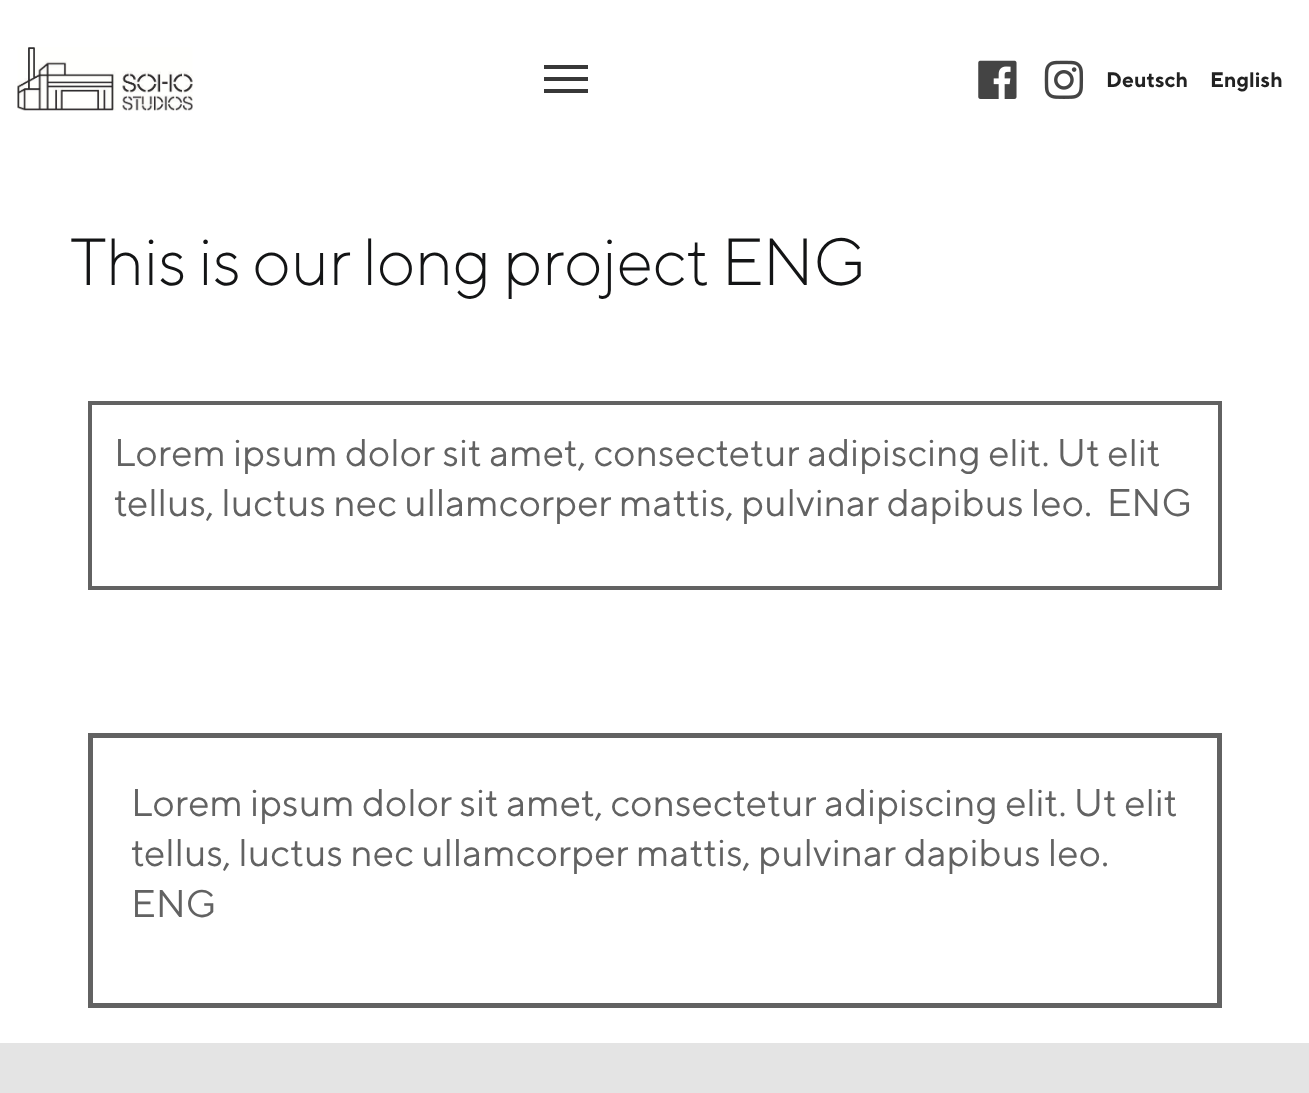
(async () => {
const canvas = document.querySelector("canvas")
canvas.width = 1309
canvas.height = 1093
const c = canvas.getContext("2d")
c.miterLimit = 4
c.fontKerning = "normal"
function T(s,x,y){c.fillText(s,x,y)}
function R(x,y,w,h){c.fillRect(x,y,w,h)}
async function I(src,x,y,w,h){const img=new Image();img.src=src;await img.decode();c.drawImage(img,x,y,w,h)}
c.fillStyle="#fff"
R(0,0,1309,1093)
await I("1.png",17,47,176,64)
c.fillStyle="#383838"
R(544,77,44,4)
R(544,65,44,4)
R(544,89,44,4)
await I("2.png",978,60,39,39)
await I("3.png",1044,60,40,39)
c.font="bold 21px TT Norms"
c.fillStyle="#222"
T("Deutsch",1106,87)
T("English",1210,87)
c.letterSpacing="-0.5px"
c.font="300 66.5px TT Norms"
c.fillStyle="#131415"
T("This is our long project ENG",70,285)
c.strokeStyle="#626262"
c.lineWidth=4
c.strokeRect(90,403,1130,185)
c.letterSpacing="0px"
c.font="38.5px TT Norms"
c.fillStyle="#626262"
T("Lorem ipsum dolor sit amet, consectetur adipiscing elit. Ut elit",114,466)
T("tellus, luctus nec ullamcorper mattis, pulvinar dapibus leo.  ENG",114,516)
c.lineWidth=5
c.strokeRect(90.5,735.5,1129,270)
T("Lorem ipsum dolor sit amet, consectetur adipiscing elit. Ut elit",131,816)
T("tellus, luctus nec ullamcorper mattis, pulvinar dapibus leo.",131,866)
T("ENG",131,917)
c.fillStyle="#e4e4e4"
R(0,1043,1309,50)
})()
